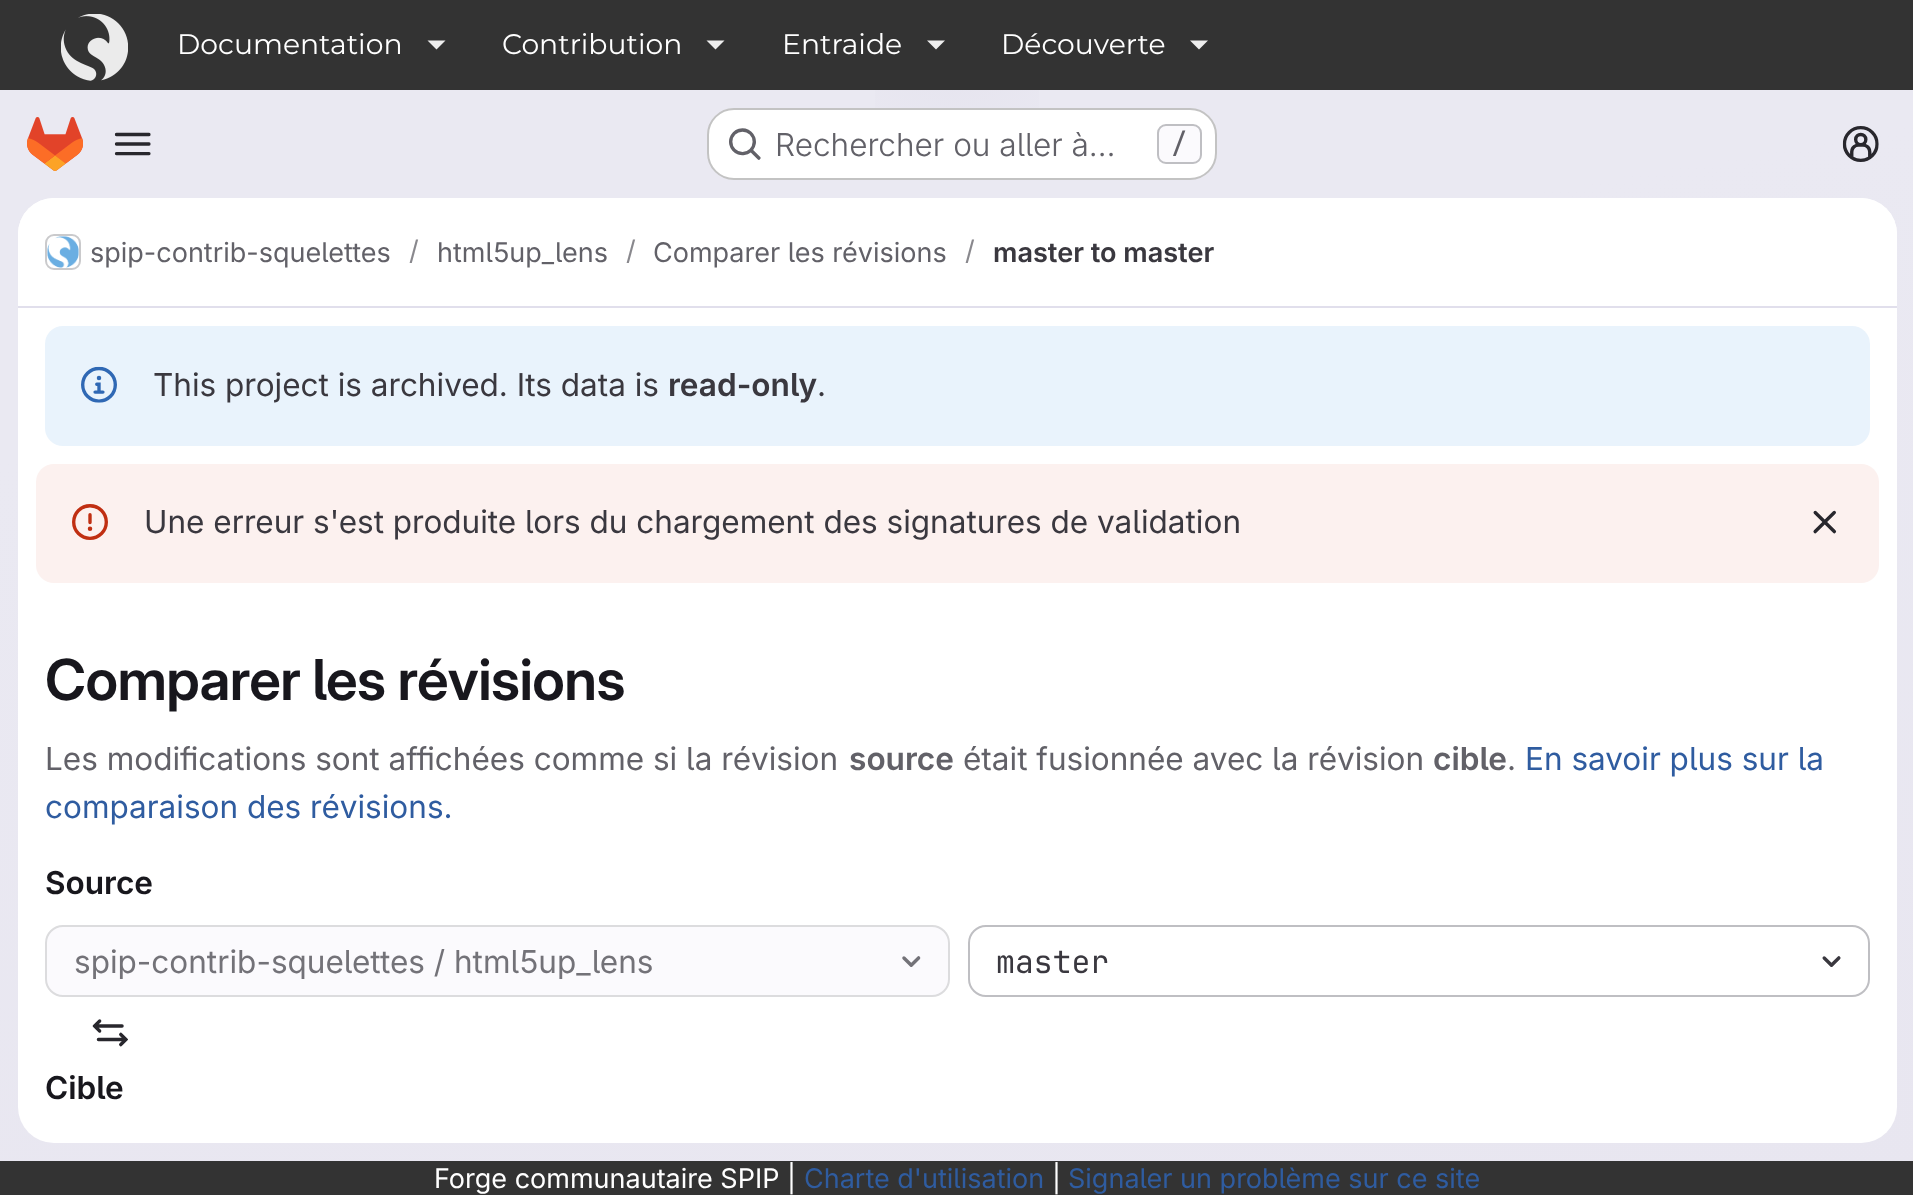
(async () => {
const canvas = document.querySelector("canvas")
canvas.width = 1913
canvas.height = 1195
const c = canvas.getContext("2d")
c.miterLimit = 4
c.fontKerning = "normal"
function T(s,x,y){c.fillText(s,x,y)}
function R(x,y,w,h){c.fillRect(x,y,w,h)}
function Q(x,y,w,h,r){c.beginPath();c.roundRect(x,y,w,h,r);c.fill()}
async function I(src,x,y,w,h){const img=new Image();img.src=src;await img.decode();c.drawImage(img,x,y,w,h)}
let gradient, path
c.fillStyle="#fff"
R(0,0,1913,1195)
gradient = c.createLinearGradient(1089,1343,826,-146)
gradient.addColorStop(0,"#e8e6f0")
gradient.addColorStop(.7,"#eae9f2")
c.fillStyle = gradient
R(0,90,1913,1071)
gradient = c.createRadialGradient(957,0,0,957,0,957)
gradient.addColorStop(0,"#e4e2ed")
gradient.addColorStop(.16,"#e4e2ed00")
c.fillStyle = gradient
c.beginPath()
c.rect(875,90,164,48)
c.save()
c.clip()
c.scale(1,1197 / 957)
c.fillRect(0,0,1913,956)
c.restore()
c.fillStyle="#333"
R(0,0,1913,90)
await I("1.png",61,14,67,67)
c.font="28.25px Montserrat"
c.fillStyle="#fff"
T("Documentation",177,54)
c.fillStyle="#eee"
path = new Path2D("M427.5 40.5h18l-9 9z")
c.fill(path)
c.fillStyle="#fff"
T("Contribution",502,54)
c.fillStyle="#eee"
path = new Path2D("M706.5 40.5h18l-9 9z")
c.fill(path)
c.fillStyle="#fff"
T("Entraide",782,54)
c.fillStyle="#eee"
path = new Path2D("M927 40.5h18l-9 9z")
c.fill(path)
c.fillStyle="#fff"
T("Découverte",1001,54)
c.fillStyle="#eee"
path = new Path2D("M1190 40.5h18l-9 9z")
c.fill(path)
await I("2.png",27,117,56,54)
await I("3.png",114,132,37,24)
c.fillStyle="#fff"
Q(707,108,510,72,27)
c.beginPath()
c.roundRect(708,109,508,70,26)
c.strokeStyle="#0505063d"
c.lineWidth=2
c.stroke()
await I("4.png",729,128,32,32)
c.font="300 31.5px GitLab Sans"
c.fillStyle="#626168"
T("Rechercher ou aller à…",775,156)
c.fillStyle="#fbfafd"
c.beginPath()
c.roundRect(1158,125,43,38,8)
c.fill()
c.strokeStyle="#bfbfc3"
c.stroke()
c.font="500 27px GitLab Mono"
c.fillStyle="#626168"
T("/",1171,153)
await I("5.png",1842,126,37,36)
c.fillStyle="#fff"
Q(18,198,1879,945,36)
c.beginPath()
c.roundRect(18,198,1879,110,[36,36,0,0])
c.fill()
c.fillStyle="#e1dfec"
R(18,306,1879,2)
c.beginPath()
c.roundRect(46,235,34,34,8)
c.strokeStyle="#dcdcde"
c.stroke()
await I("6.png",47,236,32,32)
c.beginPath()
c.roundRect(46,235,34,34,8)
c.strokeStyle="#05050614"
c.stroke()
c.font="27px GitLab Sans"
c.fillStyle="#626168"
T("spip-contrib-squelettes",90,262)
c.fillStyle="#89888d"
T("/",409,260)
c.fillStyle="#626168"
T("html5up_lens",437,262)
c.fillStyle="#89888d"
T("/",626,260)
c.fillStyle="#626168"
T("Comparer les révisions",653,262)
c.fillStyle="#89888d"
T("/",965,260)
c.font="600 27px 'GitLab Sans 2'"
c.fillStyle="#3a383f"
T("master to master",993,262)
c.fillStyle="#e9f3fc"
Q(45,326,1825,120,18)
await I("7.png",81,366,36,37)
c.font="31.5px GitLab Sans"
c.fillStyle="#3a383f"
T("This project is archived. Its data is",153,396)
c.font="600 31.5px 'GitLab Sans 2'"
T("read-only",668,396)
c.font="31.5px GitLab Sans"
T(".",817,396)
c.fillStyle="#fcf1ef"
Q(36,464,1843,119,18)
await I("8.png",72,504,36,36)
c.fillStyle="#3a383f"
T("Une erreur s'est produite lors du chargement des signatures de validation",144,533)
await I("9.png",1813,510,24,24)
c.letterSpacing="-0.6px"
c.font="600 56.5px GitLab Sans"
c.fillStyle="#18171d"
T("Comparer les révisions",45,700)
c.letterSpacing="0px"
c.font="31.5px GitLab Sans"
c.fillStyle="#626168"
T("Les modifications sont affichées comme si la révision",45,770)
c.font="600 31.5px 'GitLab Sans 2'"
T("source",849,770)
c.font="31.5px GitLab Sans"
T("était fusionnée avec la révision",963,770)
c.font="600 31.5px 'GitLab Sans 2'"
T("cible",1433,770)
c.font="31.5px GitLab Sans"
T(".",1507,770)
c.fillStyle="#2f5ca0"
T("En savoir plus sur la",1525,770)
T("comparaison des révisions.",45,818)
c.font="600 31.5px 'GitLab Sans 2'"
c.fillStyle="#18171d"
T("Source",45,894)
c.fillStyle="#fbfafd"
c.beginPath()
c.roundRect(46,926,903,70,17)
c.fill()
c.strokeStyle="#dcdcde"
c.stroke()
c.save()
c.beginPath()
c.rect(74,943,581,36)
c.clip()
c.font="31.5px GitLab Sans"
c.fillStyle="#737278"
T("spip-contrib-squelettes / html5up_lens",74,973)
c.restore()
await I("10.png",902,956,19,11)
c.beginPath()
c.roundRect(969,926,900,70,17)
c.strokeStyle="#bfbfc3"
c.stroke()
c.font="31.5px GitLab Mono"
c.fillStyle="#3a383f"
T("master",996,973)
await I("11.png",1822,956,19,11)
await I("12.png",92,1019,36,28)
c.font="600 31.5px 'GitLab Sans 2'"
c.fillStyle="#18171d"
T("Cible",45,1099)
c.fillStyle="#333"
R(0,1161,1913,34)
c.font="27px GitLab Sans"
c.fillStyle="#fff"
T("Forge communautaire SPIP |",434,1188)
c.fillStyle="#2f5ca0"
T("Charte d'utilisation",804,1188)
c.fillStyle="#fff"
T("|",1052,1188)
c.fillStyle="#2f5ca0"
T("Signaler un problème sur ce site",1068,1188)
})()
